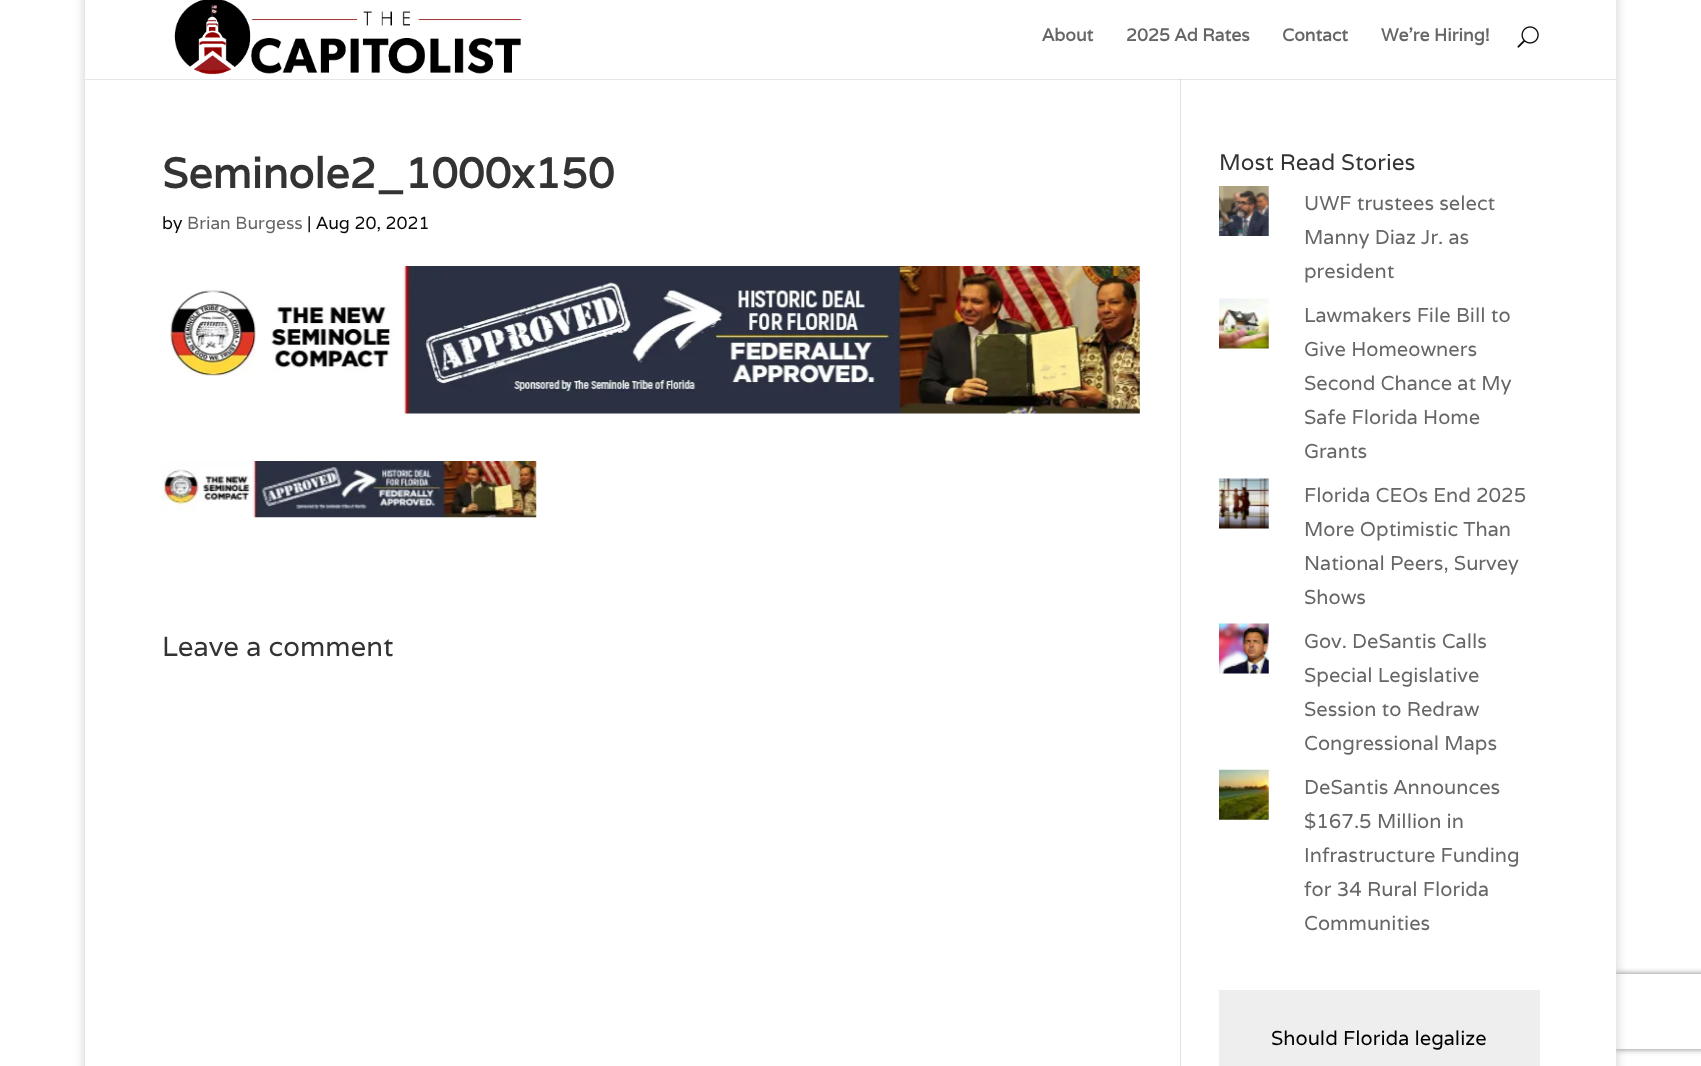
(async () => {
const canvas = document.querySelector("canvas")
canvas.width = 1701
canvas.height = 1066
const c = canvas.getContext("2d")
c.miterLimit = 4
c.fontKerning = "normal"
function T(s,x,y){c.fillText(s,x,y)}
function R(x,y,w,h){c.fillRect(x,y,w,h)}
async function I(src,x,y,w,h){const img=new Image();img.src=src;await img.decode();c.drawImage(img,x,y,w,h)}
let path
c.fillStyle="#fff"
R(0,0,1701,1066)
c.fillStyle="#00000033"
c.filter="blur(6px)"
c.beginPath()
c.rect(85,-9,1531,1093)
c.fill()
c.filter="none"
c.save()
path = new Path2D("M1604 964h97v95h-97zm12.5 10h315c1.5 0 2.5 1 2.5 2.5v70c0 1.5-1 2.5-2.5 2.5h-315c-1.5 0-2.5-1-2.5-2.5v-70c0-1.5 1-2.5 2.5-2.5z")
c.clip(path,"evenodd")
c.fillStyle="#808080"
c.filter="blur(3px)"
c.beginPath()
c.roundRect(1614,974,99,75,2.5)
c.fill()
c.filter="none"
c.restore()
c.fillStyle="#fff"
R(85,0,1531,1066)
c.fillStyle="#e6e6e6"
R(85,79,1531,1)
await I("1.png",174,0,348,75)
c.font="bold 17.5px Varela"
c.fillStyle="#666"
T("About",1042,41)
T("2025 Ad Rates",1126,41)
T("Contact",1282,41)
T("We’re Hiring!",1381,41)
await I("2.png",1517,26,22,22)
c.fillStyle="#e2e2e2"
R(1180,79,1,987)
c.fillStyle="#cbcbcb"
R(1180,79,1,1)
c.font="bold 42.5px Varela"
c.fillStyle="#333"
T("Seminole2_1000x150",162,188)
c.font="17.5px Varela"
c.fillStyle="#0a0a0a"
T("by",162,229)
c.fillStyle="#666"
T("Brian Burgess",187,229)
c.fillStyle="#0a0a0a"
T("| Aug 20, 2021",307,229)
await I("3.png",169,266,971,148)
await I("4.png",161,461,376,57)
c.font="27.5px Varela"
c.fillStyle="#333"
T("Leave a comment",162,656)
c.font="22.5px Varela"
T("Most Read Stories",1219,170)
await I("5.png",1219,186,50,50)
c.font="20px Varela"
c.fillStyle="#666"
T("UWF trustees select",1304,210)
T("Manny Diaz Jr. as",1304,244)
T("president",1304,278)
await I("6.png",1219,298,50,51)
T("Lawmakers File Bill to",1304,322)
T("Give Homeowners",1304,356)
T("Second Chance at My",1304,390)
T("Safe Florida Home",1304,424)
T("Grants",1304,458)
await I("7.png",1219,478,50,51)
T("Florida CEOs End 2025",1304,502)
T("More Optimistic Than",1304,536)
T("National Peers, Survey",1304,570)
T("Shows",1304,604)
await I("8.png",1219,623,50,51)
T("Gov. DeSantis Calls",1304,648)
T("Special Legislative",1304,682)
T("Session to Redraw",1304,716)
T("Congressional Maps",1304,750)
await I("9.png",1219,769,50,51)
T("DeSantis Announces",1304,794)
T("$167.5 Million in",1304,828)
T("Infrastructure Funding",1304,862)
T("for 34 Rural Florida",1304,896)
T("Communities",1304,930)
c.fillStyle="#eee"
R(1219,990,321,76)
c.fillStyle="#000"
T("Should Florida legalize",1271,1045)
})()
